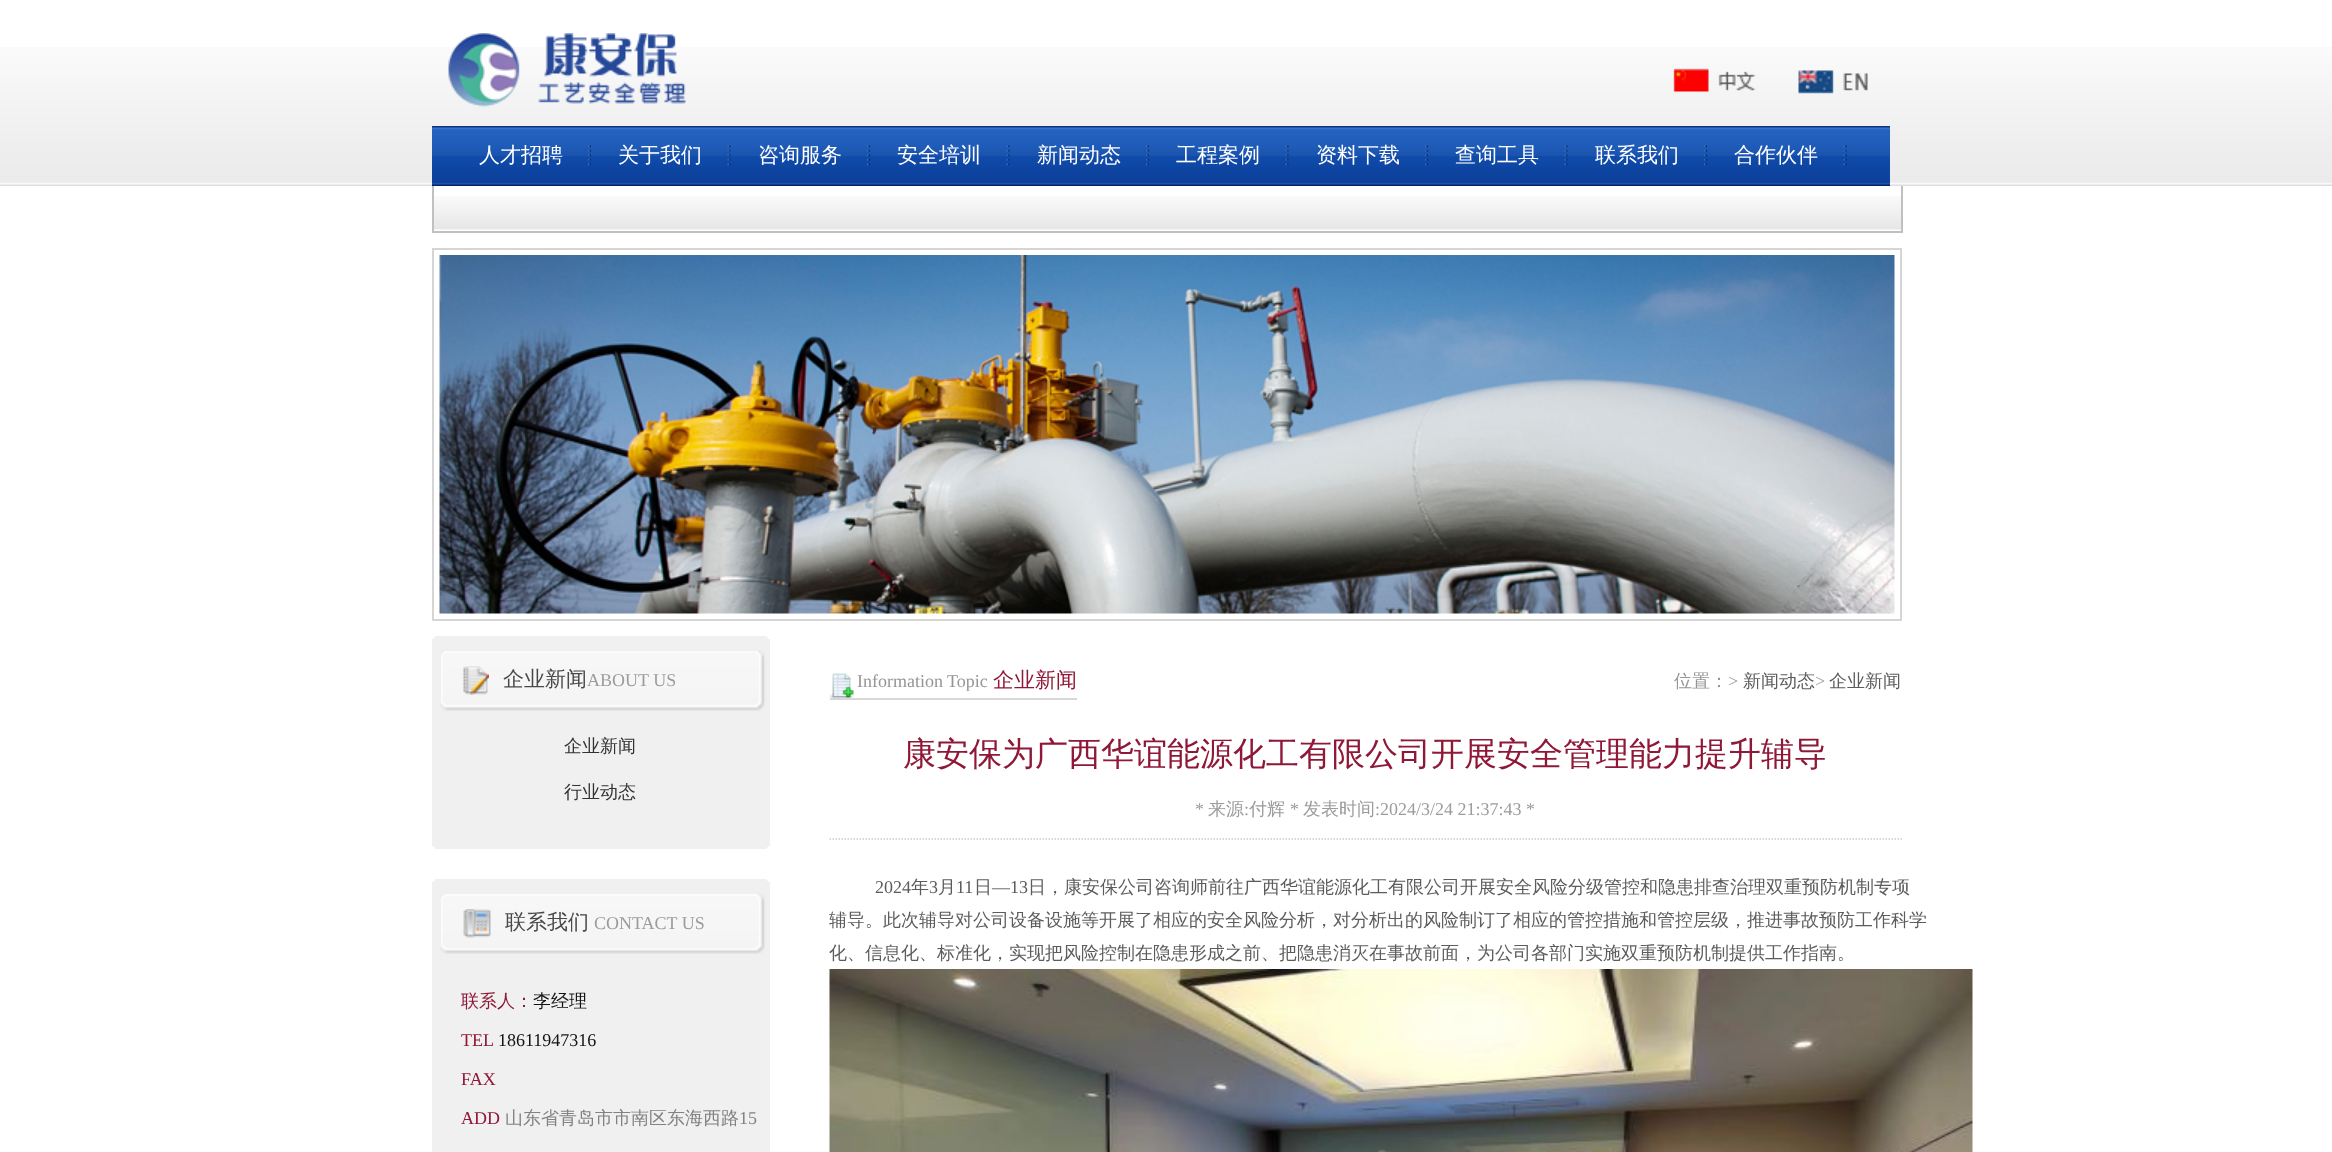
(async () => {
const canvas = document.querySelector("canvas")
canvas.width = 2332
canvas.height = 1152
const c = canvas.getContext("2d")
c.miterLimit = 4
c.fontKerning = "normal"
function T(s,x,y){c.fillText(s,x,y)}
function R(x,y,w,h){c.fillRect(x,y,w,h)}
async function I(src,x,y,w,h){const img=new Image();img.src=src;await img.decode();c.drawImage(img,x,y,w,h)}
let path
c.fillStyle="#fff"
R(0,0,2332,1152)
await I("1.png",0,47,2332,139)
await I("2.png",448,33,238,74)
await I("3.png",1673,68,83,24)
await I("4.png",1798,70,70,24)
await I("5.png",432,126,1458,60)
await I("6.png",588,145,3,21)
c.font="500 21px WenQuanYi Zen Hei"
T("人才招聘",479,162)
await I("7.png",727,145,4,21)
T("关于我们",618,162)
await I("8.png",867,145,3,21)
T("咨询服务",758,162)
await I("7.png",1006,145,4,21)
T("安全培训",897,162)
await I("6.png",1146,145,3,21)
T("新闻动态",1037,162)
await I("7.png",1285,145,4,21)
T("工程案例",1176,162)
await I("8.png",1425,145,3,21)
T("资料下载",1316,162)
await I("7.png",1564,145,4,21)
T("查询工具",1455,162)
await I("8.png",1704,145,3,21)
T("联系我们",1595,162)
await I("7.png",1843,145,4,21)
T("合作伙伴",1734,162)
await I("9.png",434,196,1467,34)
c.fillStyle="#c0c0c0"
R(1901,186,2,47)
R(432,231,1470,2)
R(432,186,2,47)
c.strokeStyle="#d5d5d5"
c.lineWidth=2
c.strokeRect(433,249,1468,371)
await I("10.png",439,255,1456,359)
await I("11.png",433,636,335,3)
c.fillStyle="#f0f0f0"
R(432,639,338,207)
await I("12.png",440,650,325,61)
await I("13.png",463,666,26,29)
c.fillStyle="#494949"
T("企业新闻",503,686)
c.font="18px Liberation Serif"
c.fillStyle="#9c9c9c"
T("ABOUT US",587,686)
c.font="500 18px WenQuanYi Zen Hei"
c.fillStyle="#323232"
T("企业新闻",564,752)
T("行业动态",564,798)
await I("14.png",433,846,335,3)
await I("11.png",433,879,335,3)
c.fillStyle="#f0f0f0"
R(432,882,338,270)
await I("12.png",440,893,325,61)
await I("15.png",463,909,28,29)
c.font="500 21px WenQuanYi Zen Hei"
c.fillStyle="#494949"
T("联系我们",505,929)
c.font="18px Liberation Serif"
c.fillStyle="#9c9c9c"
T("CONTACT US",594,929)
c.font="500 18px WenQuanYi Zen Hei"
c.fillStyle="#8f1838"
T("联系人：",461,1007)
c.fillStyle="#141313"
T("李经理",533,1007)
c.font="18px Liberation Serif"
c.fillStyle="#8f1838"
T("TEL",461,1046)
c.fillStyle="#141313"
T("18611947316",498,1046)
c.fillStyle="#8f1838"
T("FAX",461,1085)
T("ADD",461,1124)
c.font="500 18px WenQuanYi Zen Hei"
c.fillStyle="#828282"
T("山东省青岛市市南区东海西路",505,1124)
c.font="18px Liberation Serif"
T("15",739,1124)
c.fillStyle="#d7d7d7"
R(830,698,247,2)
await I("16.png",829,673,25,25)
c.fillStyle="#959595"
T("Information",857,687)
T("Topic",947,687)
c.font="500 21px WenQuanYi Zen Hei"
c.fillStyle="#8f1838"
T("企业新闻",993,687)
c.font="500 18px WenQuanYi Zen Hei"
c.fillStyle="#959595"
T("位置：",1674,687)
c.font="18px Liberation Serif"
T(">",1728,687)
c.font="500 18px WenQuanYi Zen Hei"
c.fillStyle="#5c5c5c"
T("新闻动态",1743,687)
c.font="18px Liberation Serif"
c.fillStyle="#959595"
T(">",1815,687)
c.font="500 18px WenQuanYi Zen Hei"
c.fillStyle="#5c5c5c"
T("企业新闻",1829,687)
c.font="500 33px WenQuanYi Zen Hei"
c.fillStyle="#8f1838"
T("康安保为广西华谊能源化工有限公司开展安全管理能力提升辅导",903,765)
path = new Path2D("M829.5 839h1072.5")
c.strokeStyle="#ccc"
c.lineWidth=1.5
c.setLineDash([1.5,1.5])
c.stroke(path)
c.font="18px Liberation Serif"
c.fillStyle="#9c9c9c"
T("*",1195,815)
c.font="500 18px WenQuanYi Zen Hei"
T("来源",1208,815)
c.font="18px Liberation Serif"
T(":",1244,815)
c.font="500 18px WenQuanYi Zen Hei"
T("付辉",1249,815)
c.font="18px Liberation Serif"
T("*",1290,815)
c.font="500 18px WenQuanYi Zen Hei"
T("发表时间",1303,815)
c.font="18px Liberation Serif"
T(":2024/3/24 21:37:43 *",1375,815)
c.fillStyle="#5c5c5c"
T("2024",875,893)
c.font="500 18px WenQuanYi Zen Hei"
T("年",911,893)
c.font="18px Liberation Serif"
T("3",929,893)
c.font="500 18px WenQuanYi Zen Hei"
T("月",938,893)
c.font="18px Liberation Serif"
T("11",956,893)
c.font="500 18px WenQuanYi Zen Hei"
T("日",974,893)
c.font="18px Liberation Serif"
T("—13",992,893)
c.font="500 18px WenQuanYi Zen Hei"
T("日，康安保公司咨询师前往广西华谊能源化工有限公司开展安全风险分级管控和隐患排查治理双重预防机制专项",1028,893)
T("辅导。此次辅导对公司设备设施等开展了相应的安全风险分析，对分析出的风险制订了相应的管控措施和管控层级，推进事故预防工作科学",829,926)
T("化、信息化、标准化，实现把风险控制在隐患形成之前、把隐患消灭在事故前面，为公司各部门实施双重预防机制提供工作指南。",829,959)
await I("17.png",829,969,1144,183)
})()
